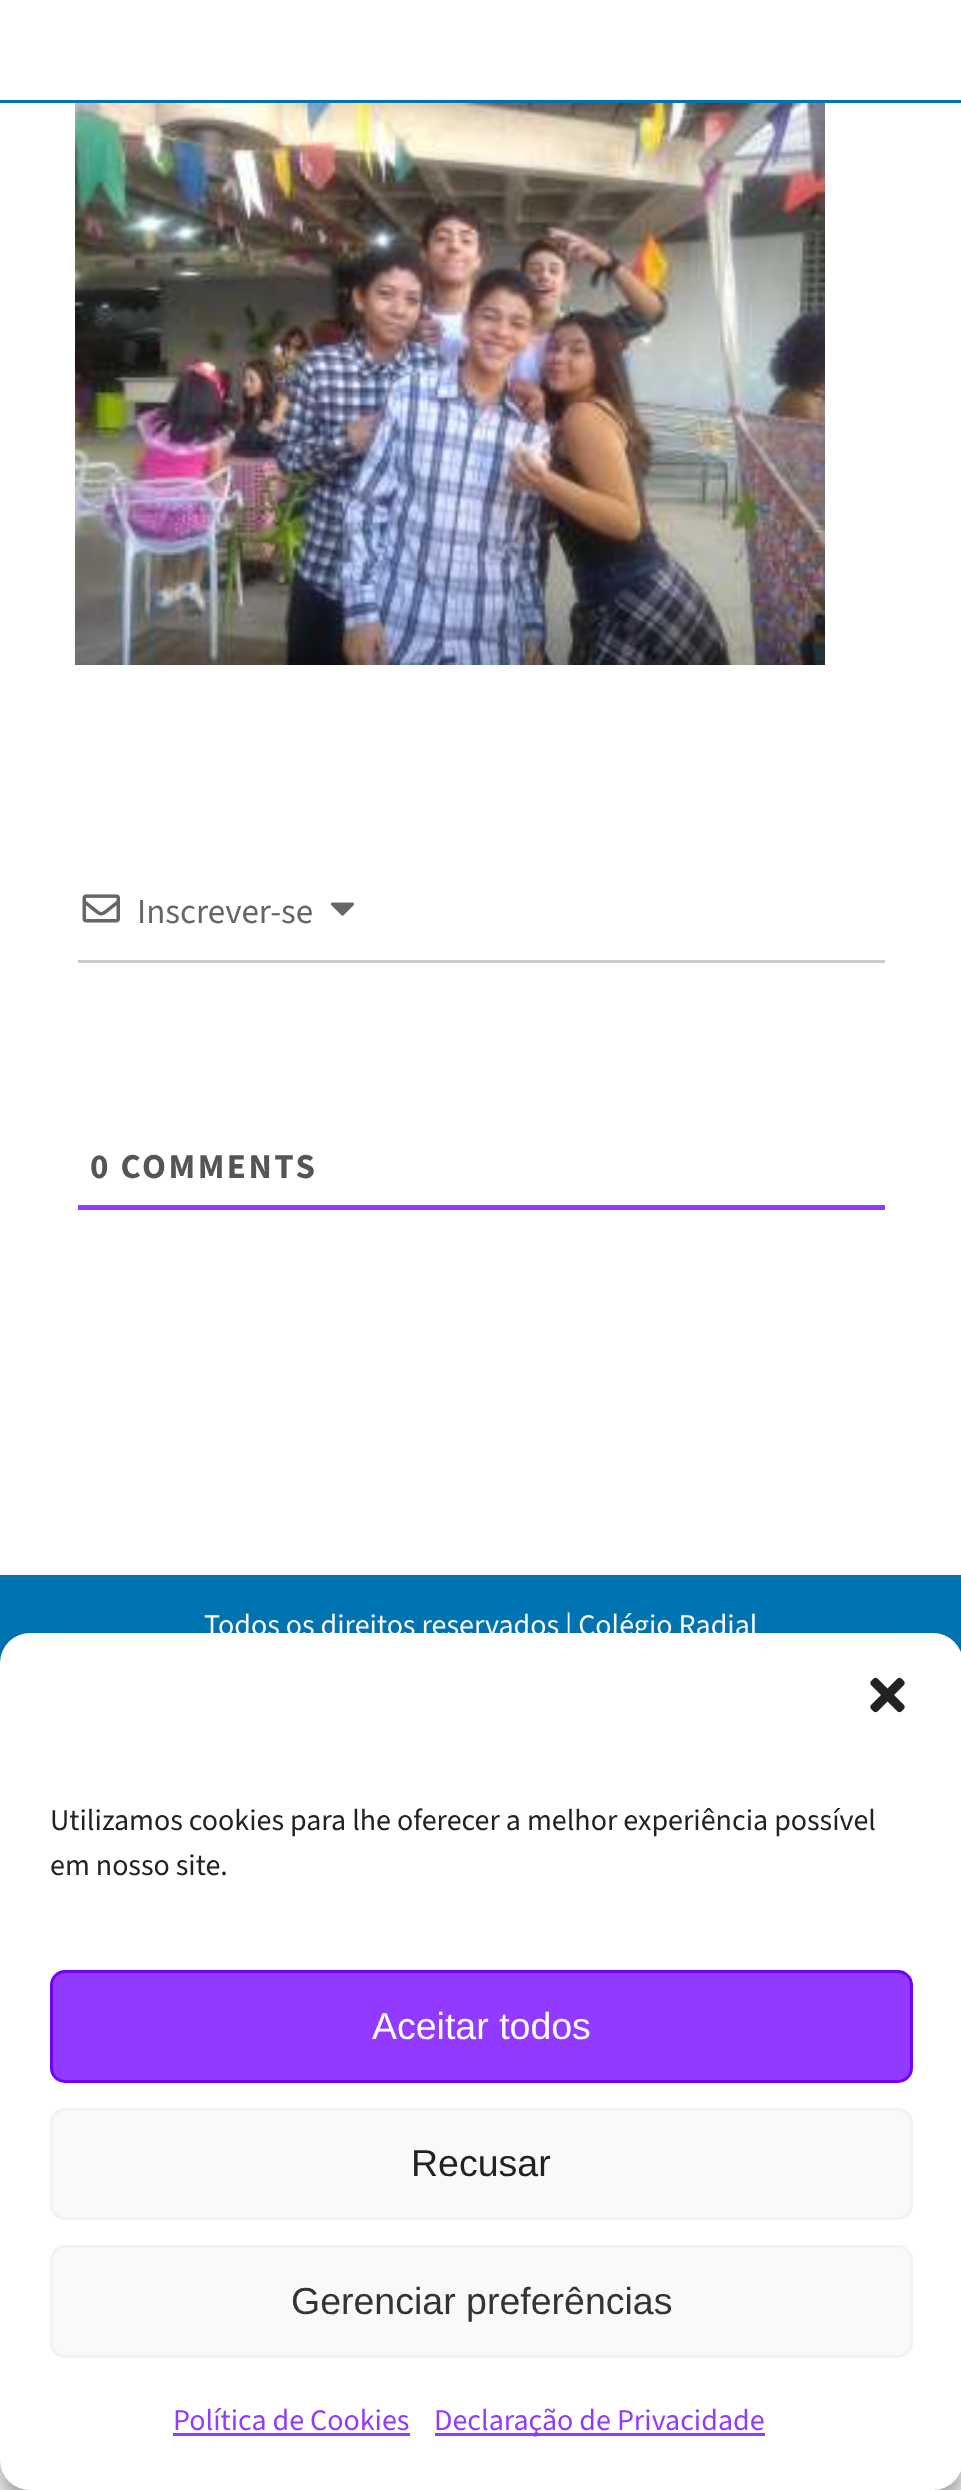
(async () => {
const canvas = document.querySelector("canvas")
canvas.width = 961
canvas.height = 2490
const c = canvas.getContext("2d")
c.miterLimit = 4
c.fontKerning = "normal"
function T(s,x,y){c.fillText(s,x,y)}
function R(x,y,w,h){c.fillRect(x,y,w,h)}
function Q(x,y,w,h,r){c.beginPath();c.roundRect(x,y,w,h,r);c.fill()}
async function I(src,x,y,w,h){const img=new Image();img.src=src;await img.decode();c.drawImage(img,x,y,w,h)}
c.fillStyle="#fff"
R(0,0,961,2490)
c.fillStyle="#0074b1"
R(0,100,961,3)
await I("1.png",75,103,750,562)
c.fillStyle="#ccc"
R(78,960,807,3)
await I("2.png",82,894,38,29)
c.font="35px 'Source Sans 3'"
c.fillStyle="#666"
T("Inscrever-se",137,923)
await I("3.png",330,902,25,14)
c.fillStyle="#923aff"
R(78,1205,807,5)
c.letterSpacing="2.5px"
c.font="bold 35px 'Source Sans 3'"
c.fillStyle="#555"
T("0 COMMENTS",90,1178)
c.fillStyle="#0075b4"
R(0,1575,961,88)
c.letterSpacing="0px"
c.font="30px 'Source Sans 3'"
c.fillStyle="#fff"
T("Todos os direitos reservados | Colégio Radial",204,1635)
c.fillStyle="#0000003b"
c.filter="blur(7.5px)"
c.beginPath()
c.roundRect(0,1648,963,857,30)
c.fill()
c.filter="none"
c.fillStyle="#00000030"
c.filter="blur(25px)"
c.beginPath()
c.roundRect(0,1658,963,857,30)
c.fill()
c.filter="none"
c.fillStyle="#fff"
Q(0,1633,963,857,30)
await I("4.png",870,1677,35,36)
c.fillStyle="#222"
T("Utilizamos cookies para lhe oferecer a melhor experiência possível",50,1830)
T("em nosso site.",50,1875)
c.fillStyle="#923aff"
c.beginPath()
c.roundRect(51.5,1971.5,860,110,13.5)
c.fill()
c.strokeStyle="#7200ff"
c.lineWidth=3
c.stroke()
c.font="37.5px Liberation Sans"
c.fillStyle="#fff"
T("Aceitar todos",372,2039)
c.fillStyle="#f9f9f9"
c.beginPath()
c.roundRect(51.5,2109.5,860,109,13.5)
c.fill()
c.strokeStyle="#f2f2f2"
c.stroke()
c.fillStyle="#222"
T("Recusar",411,2176)
c.fillStyle="#f9f9f9"
c.beginPath()
c.roundRect(51.5,2246.5,860,110,13.5)
c.fill()
c.stroke()
c.fillStyle="#333"
T("Gerenciar preferências",291,2314)
c.font="30px 'Source Sans 3'"
c.fillStyle="#923aff"
T("Política de Cookies",173,2430)
R(173,2433,237,3)
R(435,2433,330,3)
T("Declaração de Privacidade",434,2430)
})()
